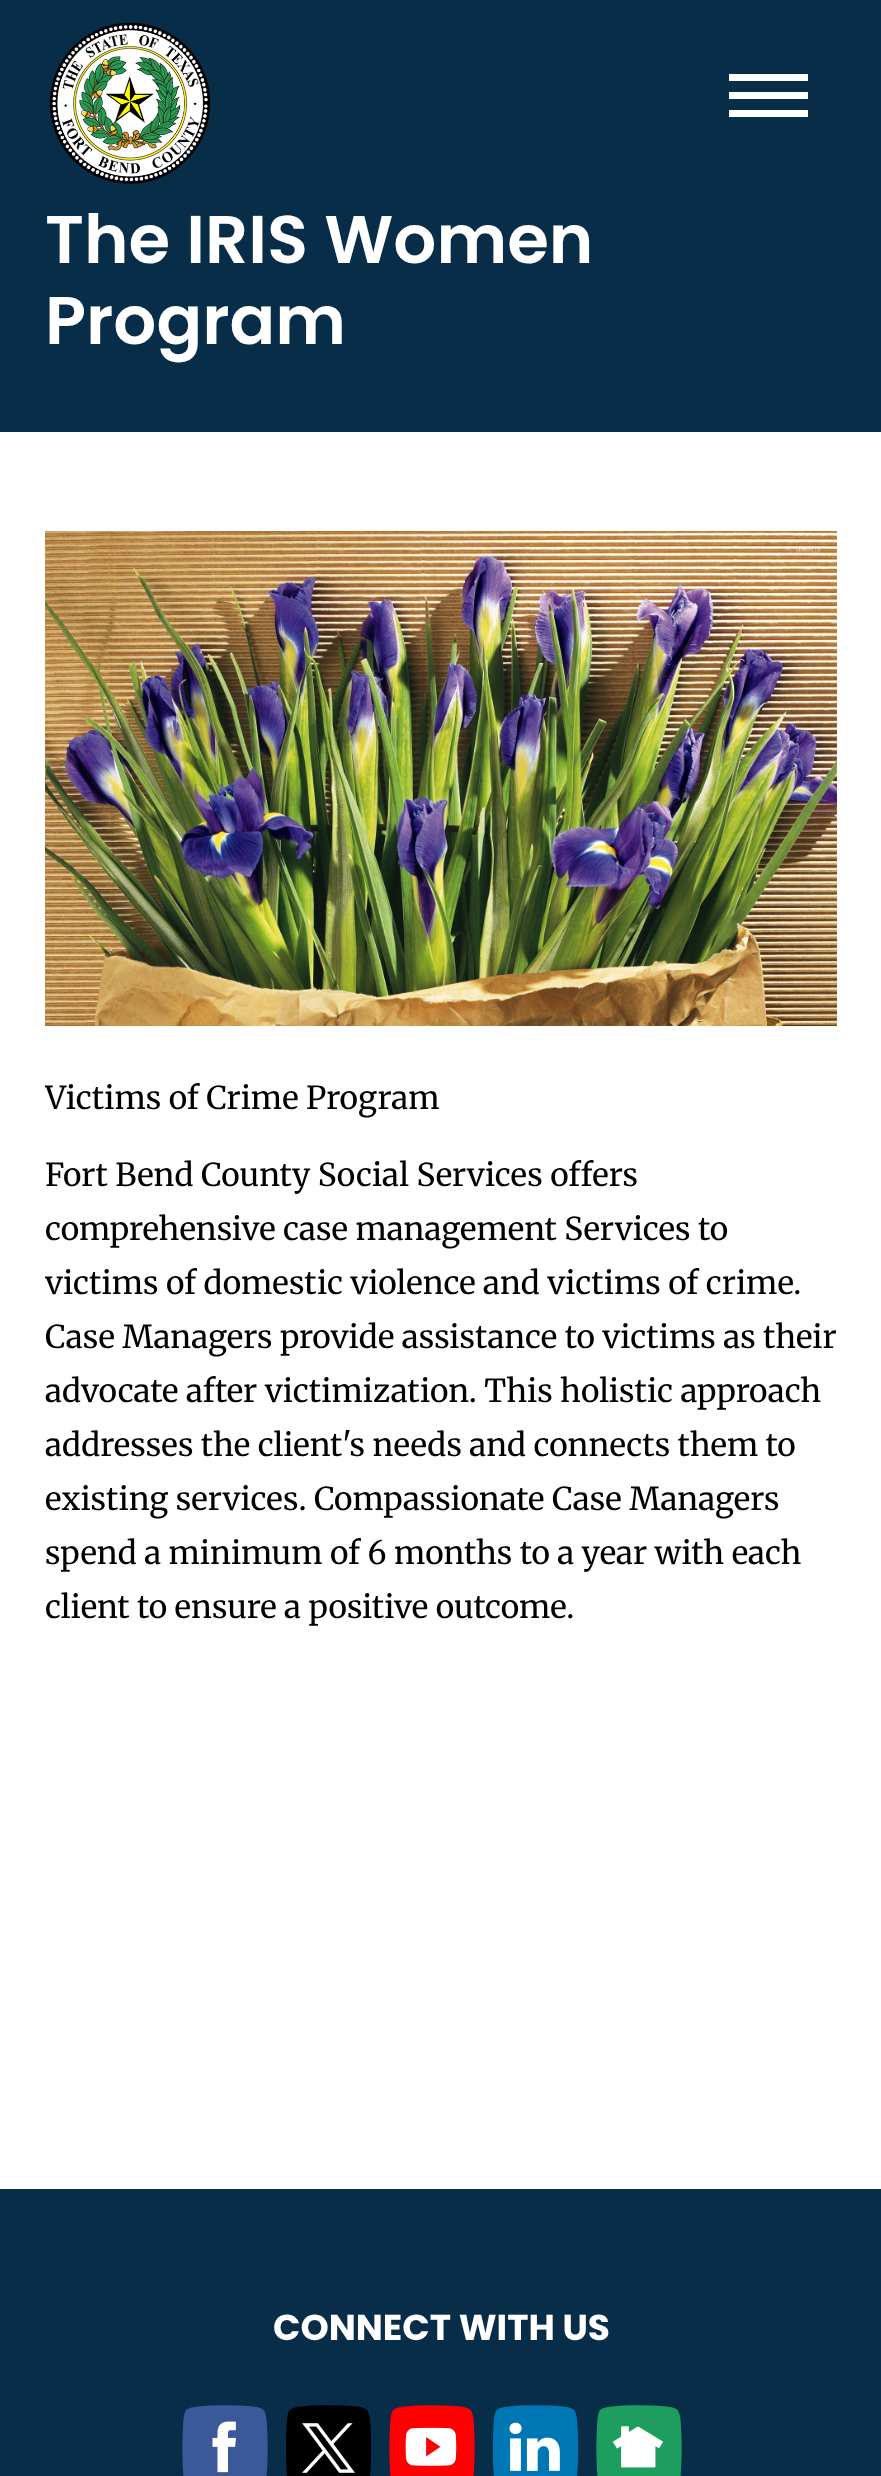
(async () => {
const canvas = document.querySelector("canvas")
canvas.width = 881
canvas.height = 2476
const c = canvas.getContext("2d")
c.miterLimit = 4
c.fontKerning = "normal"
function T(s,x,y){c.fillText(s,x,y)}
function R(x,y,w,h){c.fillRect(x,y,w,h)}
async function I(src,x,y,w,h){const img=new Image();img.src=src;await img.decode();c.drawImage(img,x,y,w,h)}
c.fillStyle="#fff"
R(0,0,881,2476)
c.fillStyle="#072d48"
R(0,0,881,432)
c.fillStyle="#fff"
R(729,74,79,7)
R(729,92,79,7)
R(729,110,79,7)
await I("1.png",49,22,162,162)
c.font="600 67.5px Poppins"
T("The IRIS Women",45,263)
T("Program",45,344)
await I("2.png",45,531,792,495)
c.save()
c.beginPath()
c.rect(45,477,792,1701)
c.clip()
c.font="31.5px Merriweather"
c.fillStyle="#000"
T("Victims of Crime Program",45,1109)
c.restore()
c.font="31.5px Merriweather"
c.fillStyle="#000"
T("Fort Bend County Social Services offers",45,1186)
T("comprehensive case management Services to",45,1240)
T("victims of domestic violence and victims of crime.",45,1294)
T("Case Managers provide assistance to victims as their",45,1348)
T("advocate after victimization. This holistic approach",45,1402)
T("addresses the client's needs and connects them to",45,1456)
T("existing services. Compassionate Case Managers",45,1510)
T("spend a minimum of 6 months to a year with each",45,1564)
T("client to ensure a positive outcome.",45,1618)
c.fillStyle="#072d48"
R(0,2189,881,287)
c.font="bold 36px Poppins"
c.fillStyle="#fff"
T("CONNECT WITH US",273,2340)
await I("3.png",182,2405,86,71)
await I("4.png",286,2405,85,71)
await I("5.png",389,2405,86,71)
await I("6.png",493,2405,85,71)
await I("7.png",596,2405,86,71)
})()
